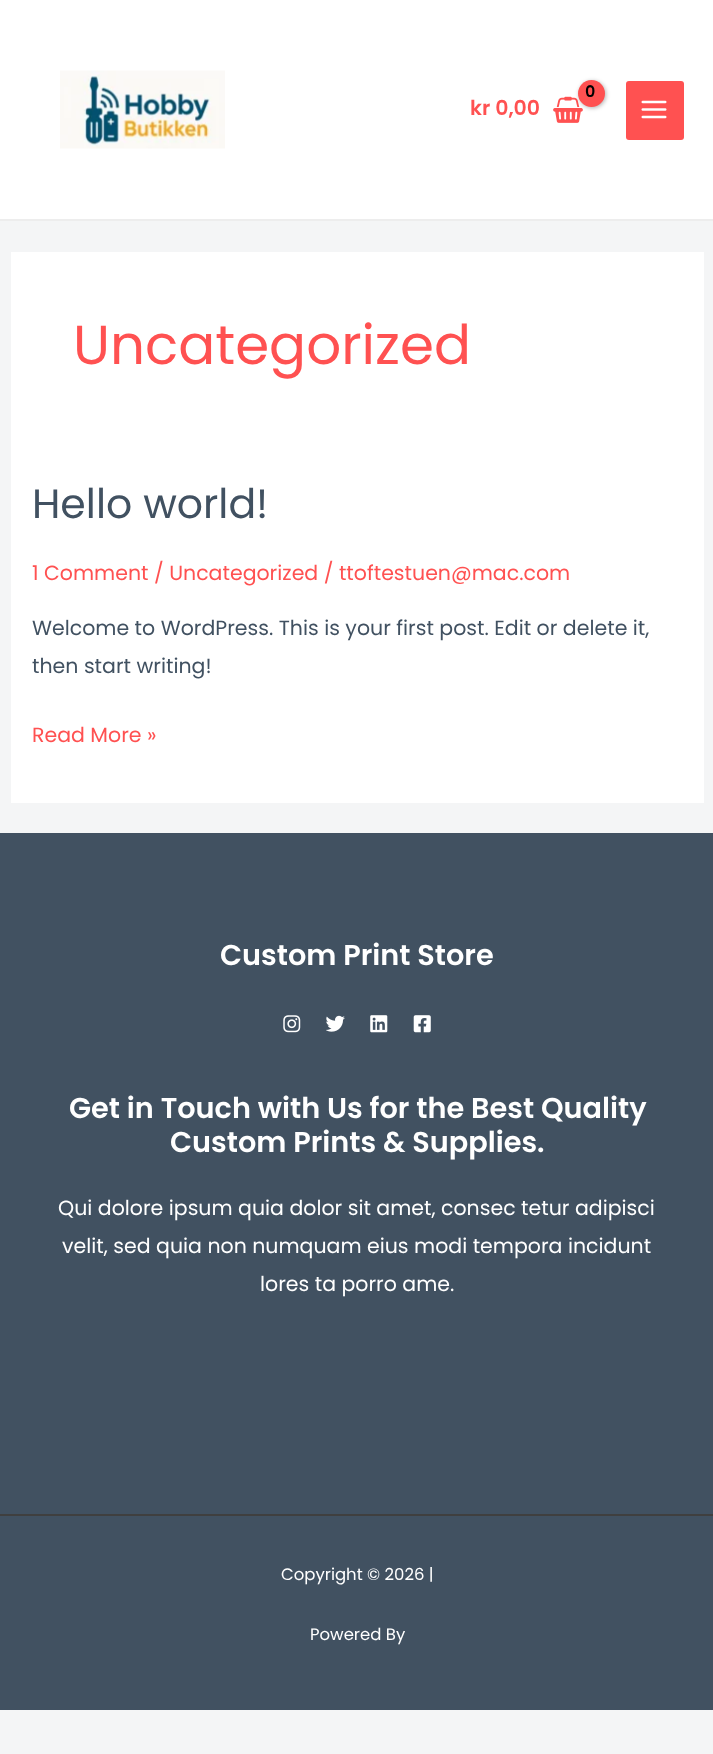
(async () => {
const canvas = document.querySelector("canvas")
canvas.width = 713
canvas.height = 1754
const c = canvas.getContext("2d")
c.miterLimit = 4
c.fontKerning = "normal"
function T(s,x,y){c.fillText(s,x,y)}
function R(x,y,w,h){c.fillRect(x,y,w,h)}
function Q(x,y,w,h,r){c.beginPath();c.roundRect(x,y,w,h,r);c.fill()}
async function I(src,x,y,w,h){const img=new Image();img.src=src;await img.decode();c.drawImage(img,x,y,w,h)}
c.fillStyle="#f4f5f6"
R(0,0,713,1754)
c.fillStyle="#fff"
R(0,0,713,219)
c.fillStyle="#ededed"
R(0,219,713,2)
await I("1.png",60,70,165,79)
await I("2.png",553,96,30,27)
c.fillStyle="#0000004d"
c.filter="blur(2px)"
c.beginPath()
c.roundRect(579,81,27,27,13.5)
c.fill()
c.filter="none"
c.fillStyle="#ff5151"
c.beginPath()
c.arc(591.5,93.5,13.5,0,7)
c.fill()
c.letterSpacing="-1px"
c.font="600 16px Poppins"
c.fillStyle="#000"
T("0",585,97)
c.letterSpacing="0px"
c.font="600 20.5px Poppins"
c.fillStyle="#ff5151"
T("kr 0,00",470,115)
Q(626,81,58,59,3)
await I("3.png",641,100,26,19)
c.fillStyle="#fff"
R(11,252,693,551)
c.font="54.75px Poppins"
c.fillStyle="#ff5151"
T("Uncategorized",73,364)
c.font="41px Poppins"
c.fillStyle="#415161"
T("Hello world!",32,518)
c.font="20.5px Poppins"
c.fillStyle="#ff5151"
T("1 Comment / Uncategorized / ttoftestuen@mac.com",32,580)
c.fillStyle="#415161"
T("Welcome to WordPress. This is your first post. Edit or delete it,",32,635)
T("then start writing!",32,673)
c.fillStyle="#ff5151"
T("Read More »",32,742)
c.fillStyle="#415161"
R(0,833,713,877)
c.font="600 28.75px Poppins"
c.fillStyle="#fff"
T("Custom Print Store",220,965)
await I("4.png",283,1015,18,18)
await I("5.png",326,1015,19,17)
await I("6.png",370,1015,18,18)
await I("7.png",413,1015,18,18)
T("Get in Touch with Us for the Best Quality",69,1118)
T("Custom Prints & Supplies.",170,1152)
c.font="20.5px Poppins"
T("Qui dolore ipsum quia dolor sit amet, consec tetur adipisci",58,1215)
T("velit, sed quia non numquam eius modi tempora incidunt",62,1253)
T("lores ta porro ame.",260,1291)
c.fillStyle="#3f3f3f"
R(0,1514,713,2)
c.font="16.5px Poppins"
c.fillStyle="#fff"
T("Copyright © 2026 |",281,1580)
T("Powered By",310,1640)
})()
